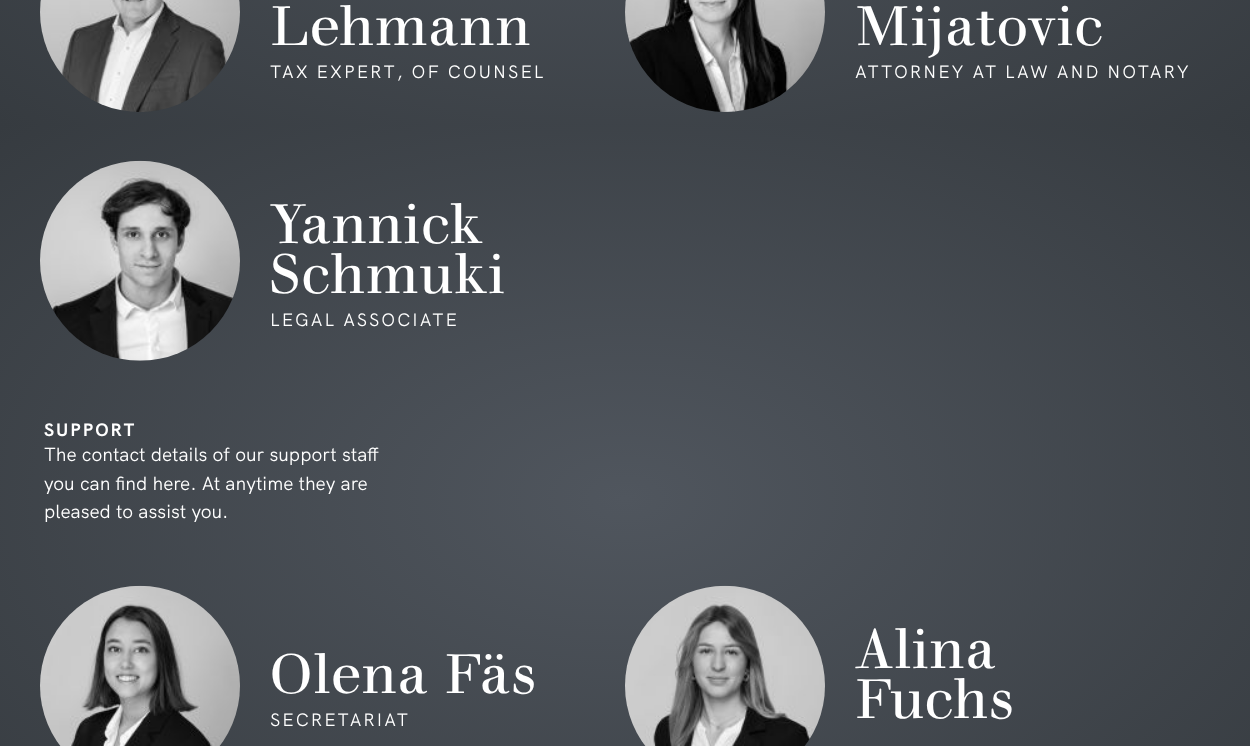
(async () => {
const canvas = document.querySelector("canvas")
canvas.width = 1250
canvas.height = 746
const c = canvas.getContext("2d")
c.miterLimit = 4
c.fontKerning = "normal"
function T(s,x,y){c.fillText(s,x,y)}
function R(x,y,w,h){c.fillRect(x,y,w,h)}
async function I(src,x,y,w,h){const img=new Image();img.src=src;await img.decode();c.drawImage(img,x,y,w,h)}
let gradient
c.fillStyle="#fff"
R(0,0,1250,746)
gradient = c.createRadialGradient(625,-415.21,0,625,-415.21,884)
gradient.addColorStop(0,"#50565e")
gradient.addColorStop(1,"#363b40")
c.fillStyle = gradient
c.beginPath()
c.rect(0,0,1250,125)
c.save()
c.clip()
c.scale(1,528 / 884)
c.fillRect(0,0,1250,1249)
c.restore()
gradient = c.createRadialGradient(625,833.77,0,625,833.77,884)
gradient.addColorStop(0,"#50565e")
gradient.addColorStop(1,"#363b40")
c.fillStyle = gradient
c.beginPath()
c.rect(0,125,1250,621)
c.save()
c.clip()
c.scale(1,528 / 884)
c.fillRect(0,0,1250,1249)
c.restore()
await I("1.png",40,0,200,112)
c.letterSpacing="2px"
c.font="55px 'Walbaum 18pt'"
c.fillStyle="#fff"
T("Lehmann",270,45)
c.font="18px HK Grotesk"
T("TAX EXPERT, OF COUNSEL",270,78)
await I("2.png",625,0,200,112)
c.font="55px 'Walbaum 18pt'"
T("Mijatovic",855,45)
c.font="18px HK Grotesk"
T("ATTORNEY AT LAW AND NOTARY",855,78)
await I("3.png",40,160,200,201)
c.font="55px 'Walbaum 18pt'"
T("Yannick",270,243)
T("Schmuki",270,293)
c.font="18px HK Grotesk"
T("LEGAL ASSOCIATE",270,326)
c.font="bold 18px HK Grotesk"
T("SUPPORT",44,436)
c.letterSpacing="0px"
c.font="19px HK Grotesk"
T("The contact details of our support staff",44,461)
T("you can find here. At anytime they are",44,490)
T("pleased to assist you.",44,518)
await I("4.png",40,585,200,161)
c.letterSpacing="2px"
c.font="55px 'Walbaum 18pt'"
T("Olena Fäs",270,693)
c.font="18px HK Grotesk"
T("SECRETARIAT",270,726)
await I("5.png",625,585,200,161)
c.font="55px 'Walbaum 18pt'"
T("Alina",855,668)
T("Fuchs",855,718)
})()
